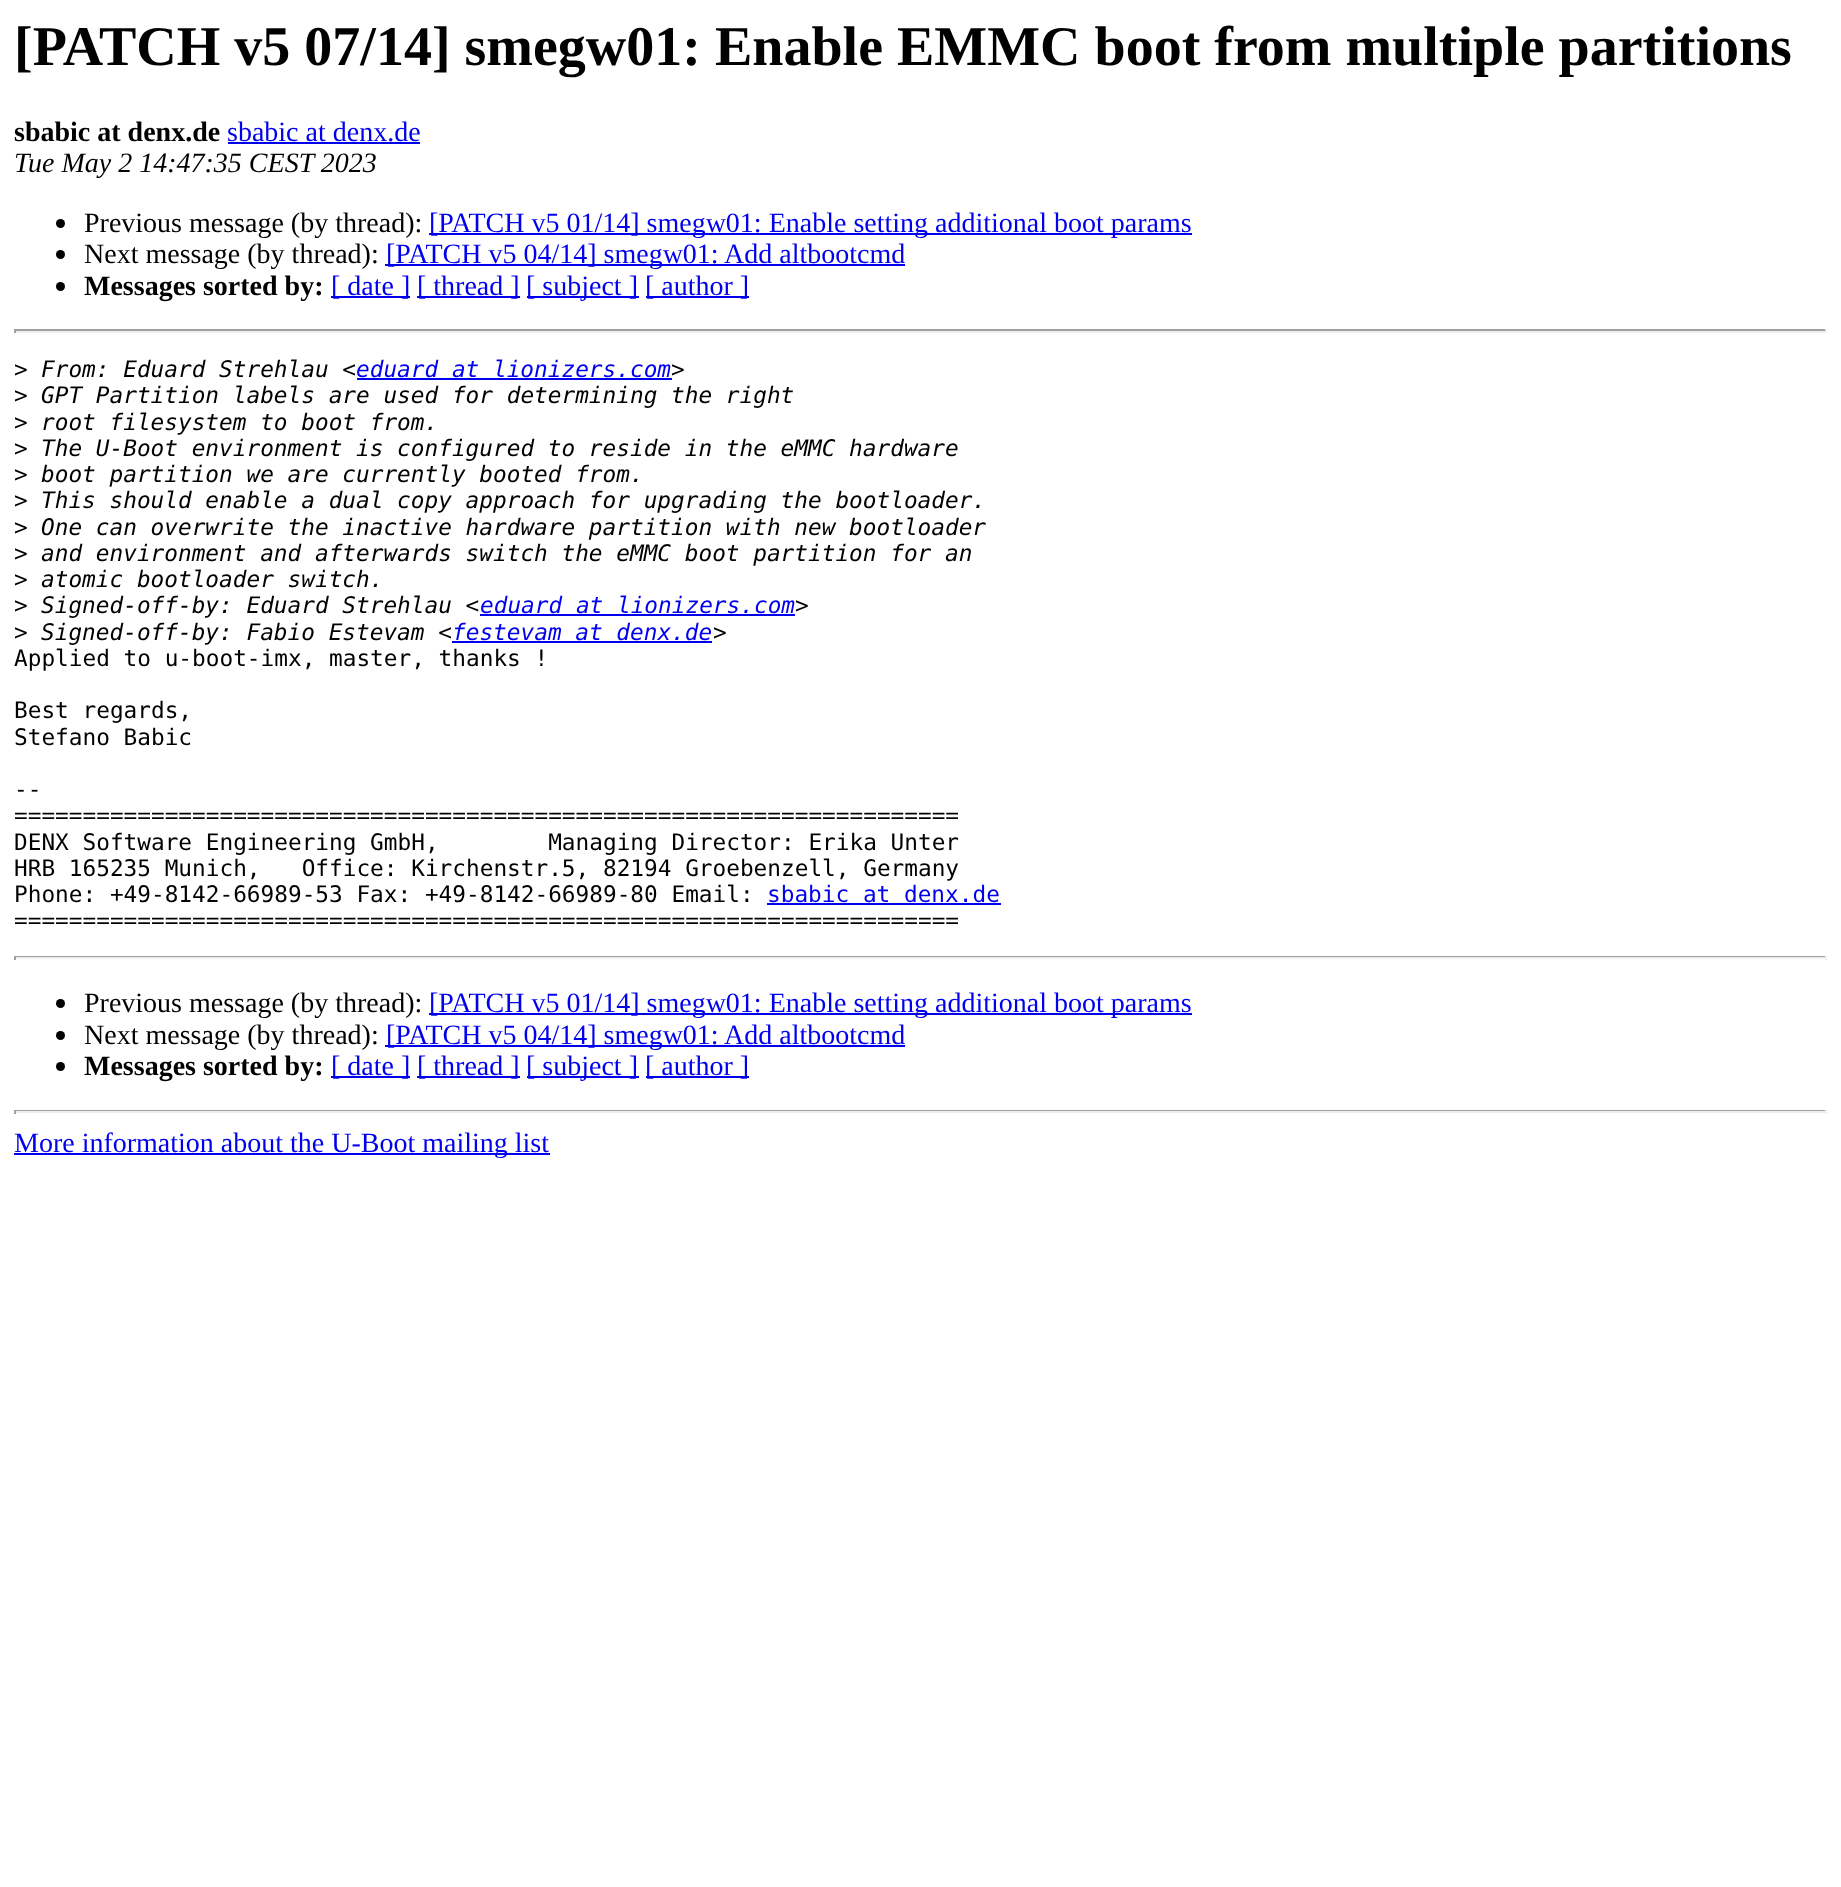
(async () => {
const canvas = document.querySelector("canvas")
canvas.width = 1841
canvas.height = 1887
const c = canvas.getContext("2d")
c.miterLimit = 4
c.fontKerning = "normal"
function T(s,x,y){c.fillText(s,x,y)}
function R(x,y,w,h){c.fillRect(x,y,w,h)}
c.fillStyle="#fff"
R(0,0,1841,1887)
c.font="bold 56px Liberation Serif"
c.fillStyle="#000"
T("[PATCH v5 07/14] smegw01: Enable EMMC boot from multiple partitions",14,65)
c.font="bold 28px Liberation Serif"
T("sbabic at denx.de",14,141)
c.font="28px Liberation Serif"
c.fillStyle="#00e"
T("sbabic at denx.de",227,141)
R(228,142,192,2)
c.font="italic 28px Liberation Serif"
c.fillStyle="#000"
T("Tue May 2 14:47:35 CEST 2023",14,172)
c.beginPath()
c.arc(60.5,223.5,4.5,0,7)
c.fill()
c.font="28px Liberation Serif"
T("Previous message (by thread):",84,232)
c.fillStyle="#00e"
R(429,233,763,2)
T("[PATCH v5 01/14] smegw01: Enable setting additional boot params",429,232)
c.fillStyle="#000"
c.beginPath()
c.arc(60.5,254.5,4.5,0,7)
c.fill()
T("Next message (by thread):",84,263)
c.fillStyle="#00e"
R(385,264,520,2)
T("[PATCH v5 04/14] smegw01: Add altbootcmd",386,263)
c.fillStyle="#000"
c.beginPath()
c.arc(60.5,286.5,4.5,0,7)
c.fill()
c.font="bold 28px Liberation Serif"
T("Messages sorted by:",84,295)
c.fillStyle="#00e"
R(331,296,79,2)
c.font="28px Liberation Serif"
T("[ date ]",331,295)
R(417,296,103,2)
T("[ thread ]",417,295)
R(527,296,112,2)
T("[ subject ]",526,295)
R(646,296,103,2)
T("[ author ]",645,295)
c.fillStyle="#9f9f9f"
R(14,329,1813,2)
c.fillStyle="#eee"
R(1825,329,2,4)
R(14,331,1813,2)
c.fillStyle="#9f9f9f"
R(14,329,2,4)
c.font="22.75px DejaVu Sans Mono"
c.fillStyle="#000"
T(">",14,377)
c.font="italic 22.75px DejaVu Sans Mono"
T("From: Eduard Strehlau <",41,377)
c.fillStyle="#00e"
T("eduard at lionizers.com",356,377)
c.fillStyle="#000"
T(">",671,377)
c.fillStyle="#00e"
R(357,378,315,2)
c.font="22.75px DejaVu Sans Mono"
c.fillStyle="#000"
T(">",14,403)
c.font="italic 22.75px DejaVu Sans Mono"
T("GPT Partition labels are used for determining the right",41,403)
c.font="22.75px DejaVu Sans Mono"
T(">",14,430)
c.font="italic 22.75px DejaVu Sans Mono"
T("root filesystem to boot from.",41,430)
c.font="22.75px DejaVu Sans Mono"
T(">",14,456)
c.font="italic 22.75px DejaVu Sans Mono"
T("The U-Boot environment is configured to reside in the eMMC hardware",41,456)
c.font="22.75px DejaVu Sans Mono"
T(">",14,482)
c.font="italic 22.75px DejaVu Sans Mono"
T("boot partition we are currently booted from.",41,482)
c.font="22.75px DejaVu Sans Mono"
T(">",14,508)
c.font="italic 22.75px DejaVu Sans Mono"
T("This should enable a dual copy approach for upgrading the bootloader.",41,508)
c.font="22.75px DejaVu Sans Mono"
T(">",14,535)
c.font="italic 22.75px DejaVu Sans Mono"
T("One can overwrite the inactive hardware partition with new bootloader",41,535)
c.font="22.75px DejaVu Sans Mono"
T(">",14,561)
c.font="italic 22.75px DejaVu Sans Mono"
T("and environment and afterwards switch the eMMC boot partition for an",41,561)
c.font="22.75px DejaVu Sans Mono"
T(">",14,587)
c.font="italic 22.75px DejaVu Sans Mono"
T("atomic bootloader switch.",41,587)
c.font="22.75px DejaVu Sans Mono"
T(">",14,613)
c.font="italic 22.75px DejaVu Sans Mono"
T("Signed-off-by: Eduard Strehlau <",41,613)
c.fillStyle="#00e"
R(480,614,315,2)
T("eduard at lionizers.com",480,613)
c.fillStyle="#000"
T(">",795,613)
c.font="22.75px DejaVu Sans Mono"
T(">",14,640)
c.font="italic 22.75px DejaVu Sans Mono"
T("Signed-off-by: Fabio Estevam <",41,640)
c.fillStyle="#00e"
R(452,641,260,2)
T("festevam at denx.de",452,640)
c.fillStyle="#000"
T(">",713,640)
c.font="22.75px DejaVu Sans Mono"
T("Applied to u-boot-imx, master, thanks !",14,666)
T("Best regards,",14,718)
T("Stefano Babic",14,745)
T("--",14,797)
T("=====================================================================",14,823)
T("DENX Software Engineering GmbH,        Managing Director: Erika Unter",14,850)
T("HRB 165235 Munich,   Office: Kirchenstr.5, 82194 Groebenzell, Germany",14,876)
T("Phone: +49-8142-66989-53 Fax: +49-8142-66989-80 Email:",14,902)
c.fillStyle="#00e"
T("sbabic at denx.de",767,902)
R(767,903,234,2)
c.fillStyle="#000"
T("=====================================================================",14,928)
c.fillStyle="#9f9f9f"
R(14,956,1813,1)
c.fillStyle="#eee"
R(1825,956,2,4)
R(14,957,1813,2)
c.fillStyle="#9f9f9f"
R(14,956,2,4)
c.fillStyle="#000"
c.beginPath()
c.arc(60.5,1003.5,4.5,0,7)
c.fill()
c.font="28px Liberation Serif"
T("Previous message (by thread):",84,1012)
c.fillStyle="#00e"
R(429,1013,763,2)
T("[PATCH v5 01/14] smegw01: Enable setting additional boot params",429,1012)
c.fillStyle="#000"
c.beginPath()
c.arc(60.5,1035.5,4.5,0,7)
c.fill()
T("Next message (by thread):",84,1044)
c.fillStyle="#00e"
R(385,1045,520,2)
T("[PATCH v5 04/14] smegw01: Add altbootcmd",386,1044)
c.fillStyle="#000"
c.beginPath()
c.arc(60.5,1066.5,4.5,0,7)
c.fill()
c.font="bold 28px Liberation Serif"
T("Messages sorted by:",84,1075)
c.fillStyle="#00e"
R(331,1076,79,2)
c.font="28px Liberation Serif"
T("[ date ]",331,1075)
R(417,1076,103,2)
T("[ thread ]",417,1075)
R(527,1076,112,2)
T("[ subject ]",526,1075)
R(646,1076,103,2)
T("[ author ]",645,1075)
c.fillStyle="#9f9f9f"
R(14,1110,1813,1)
c.fillStyle="#eee"
R(1825,1110,2,4)
R(14,1111,1813,2)
c.fillStyle="#9f9f9f"
R(14,1110,2,4)
c.fillStyle="#00e"
R(14,1153,536,2)
T("More information about the U-Boot mailing list",14,1152)
})()
